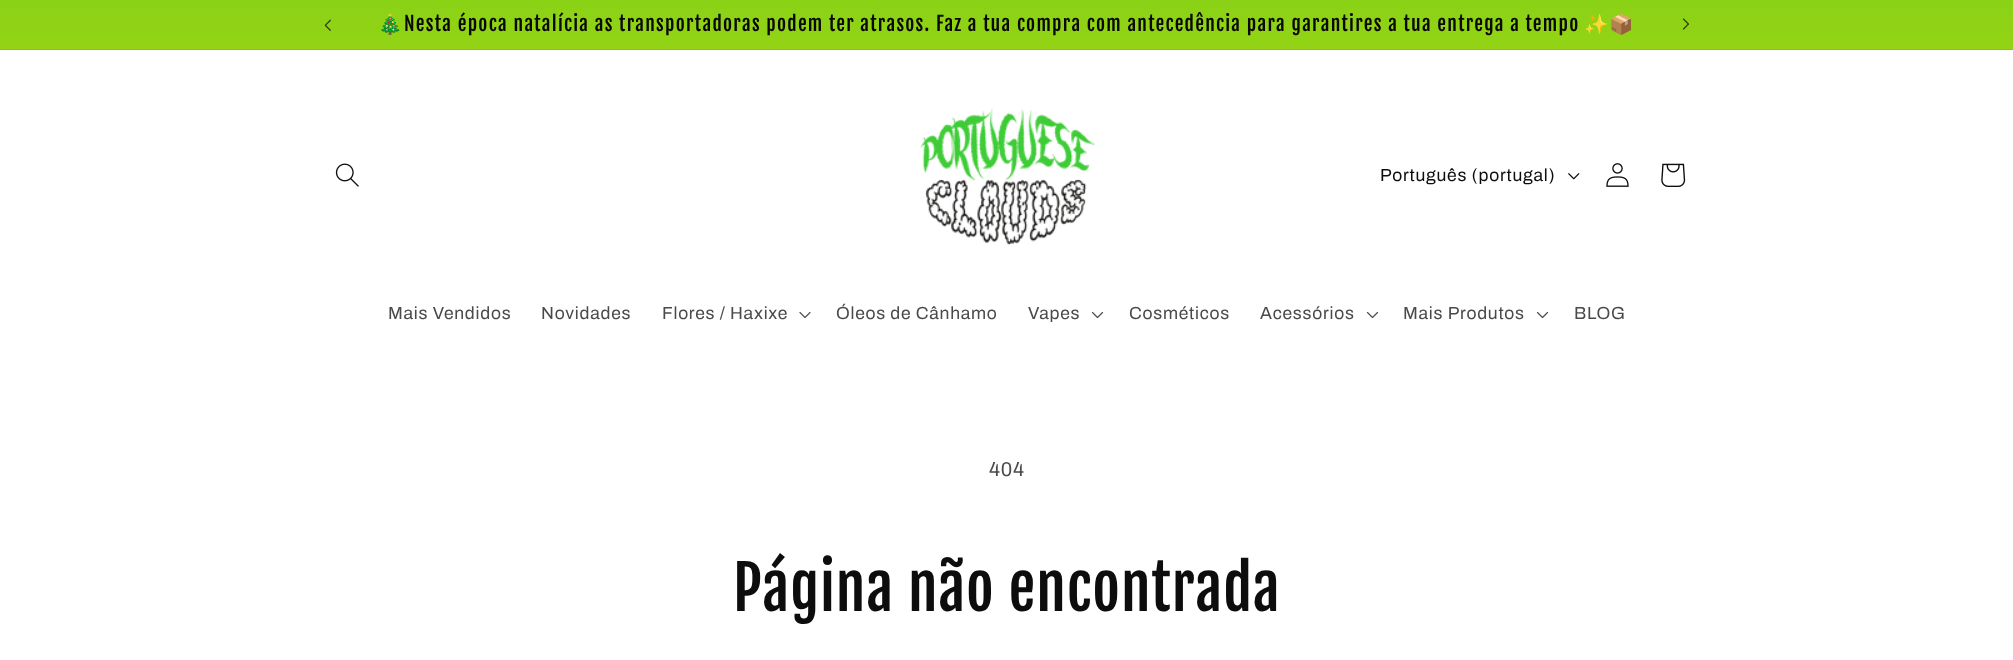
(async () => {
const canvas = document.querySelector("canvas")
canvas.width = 2013
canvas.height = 660
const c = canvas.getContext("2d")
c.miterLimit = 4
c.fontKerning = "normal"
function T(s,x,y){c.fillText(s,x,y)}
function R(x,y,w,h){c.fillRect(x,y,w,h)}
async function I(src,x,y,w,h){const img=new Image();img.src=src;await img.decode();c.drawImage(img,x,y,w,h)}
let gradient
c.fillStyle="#fff"
R(0,0,2013,660)
gradient = c.createLinearGradient(1007,660,1007,0)
gradient.addColorStop(.33,"#e2df12")
gradient.addColorStop(1,"#8ad216")
c.fillStyle = gradient
R(0,0,2013,49)
c.fillStyle="#89c314"
R(0,49,2013,1)
await I("1.png",324,19,7,12)
c.letterSpacing="1.25px"
c.font="19.5px Noto Color Emoji"
c.fillStyle="#0b0802"
T("🎄",378,31)
c.font="19.5px Fjalla One"
T("Nesta época natalícia as transportadoras podem ter atrasos. Faz a tua compra com antecedência para garantires a tua entrega a tempo",404,31)
c.font="19.5px Noto Color Emoji"
T("✨📦",1584,31)
await I("2.png",1682,18,7,12)
await I("3.png",335,163,24,24)
await I("4.png",920,108,176,138)
c.letterSpacing="0.75px"
c.font="17.5px Archivo"
c.fillStyle="#0e0d0d"
T("Português (portugal)",1380,181)
await I("5.png",1568,173,12,7)
await I("6.png",1606,163,23,24)
await I("7.png",1661,163,25,24)
c.fillStyle="#4a4a4a"
T("Mais Vendidos",388,319)
T("Novidades",541,319)
T("Flores / Haxixe",662,319)
await I("8.png",799,312,12,6)
T("Óleos de Cânhamo",836,319)
T("Vapes",1028,319)
await I("9.png",1091,311,13,8)
T("Cosméticos",1129,319)
T("Acessórios",1260,319)
await I("9.png",1366,311,13,8)
T("Mais Produtos",1403,319)
await I("9.png",1536,311,13,8)
T("BLOG",1574,319)
c.font="20px Archivo"
T("404",989,476)
c.letterSpacing="0.9px"
c.font="60px Fjalla One"
c.fillStyle="#0e0d0d"
T("Página não encontrada",733,611)
})()
